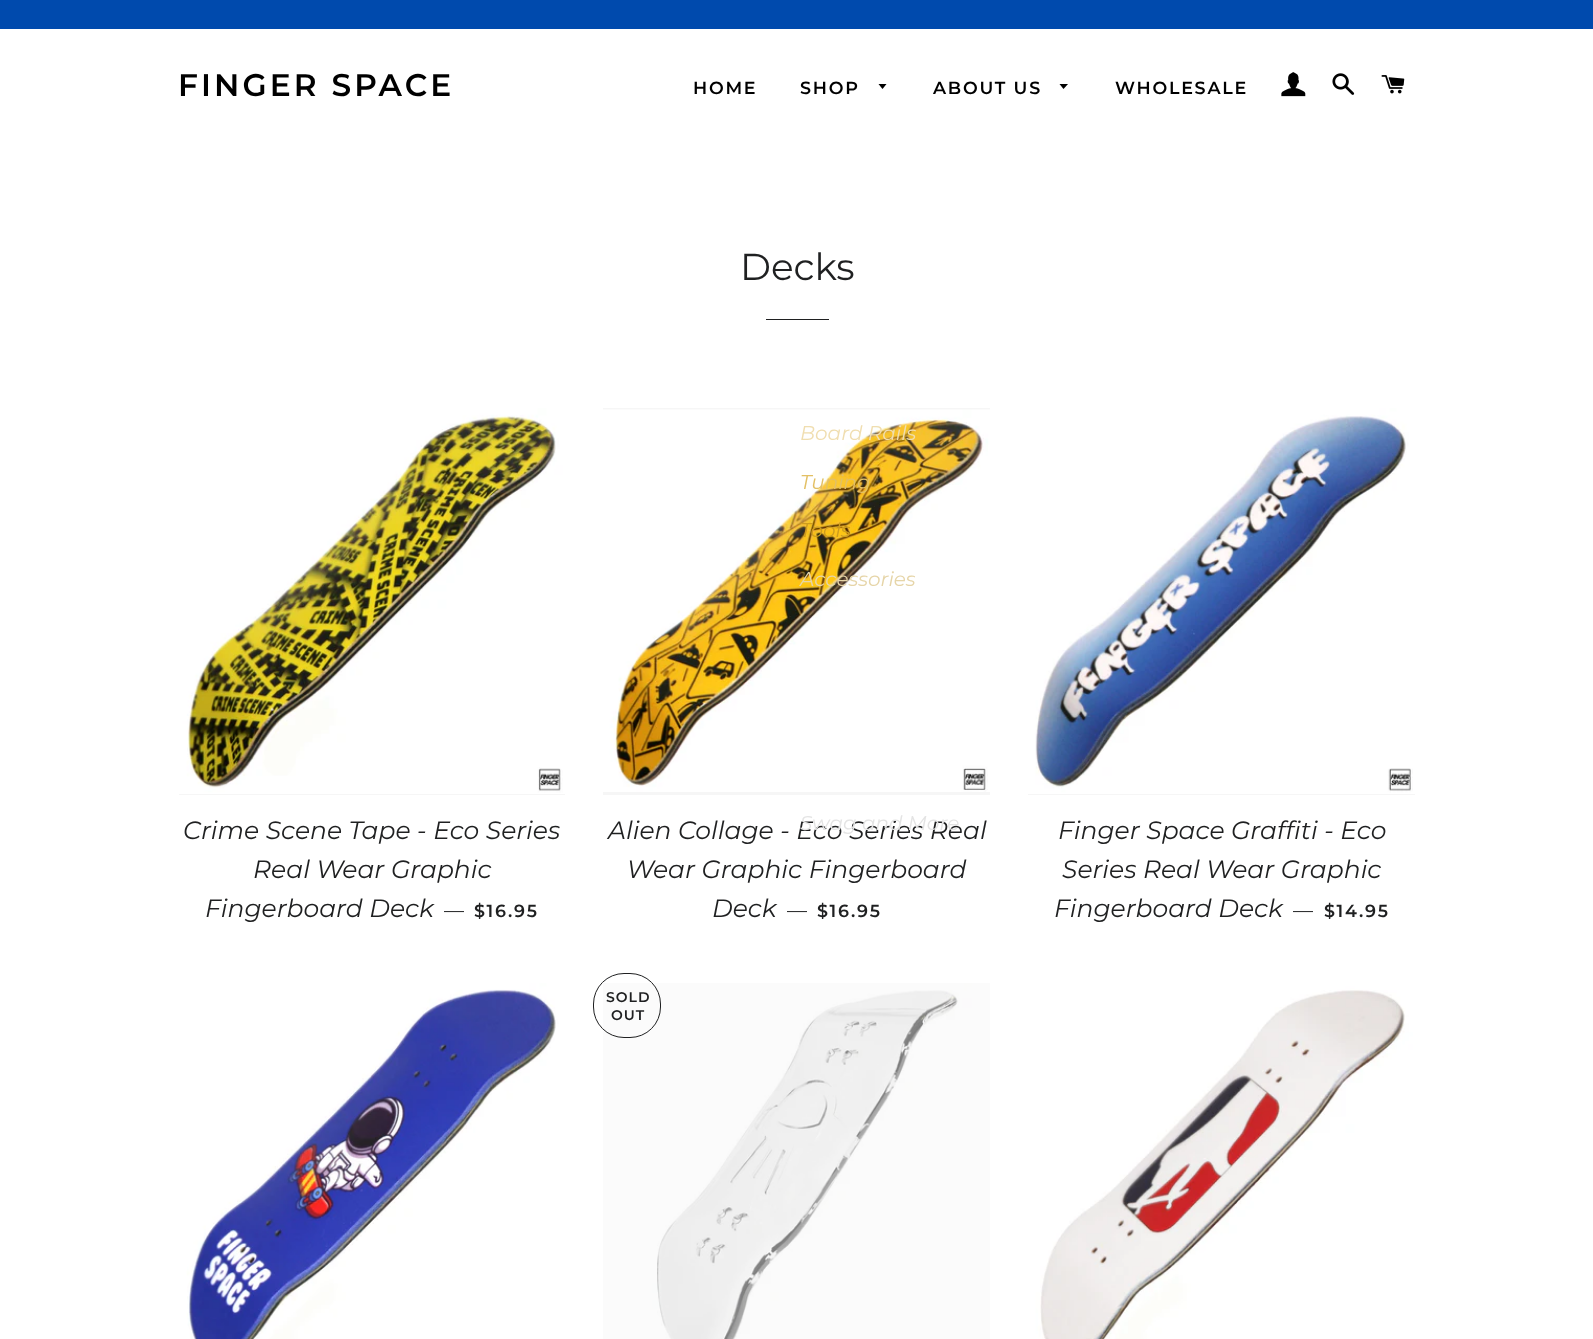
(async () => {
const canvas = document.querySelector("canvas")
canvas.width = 1593
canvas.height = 1339
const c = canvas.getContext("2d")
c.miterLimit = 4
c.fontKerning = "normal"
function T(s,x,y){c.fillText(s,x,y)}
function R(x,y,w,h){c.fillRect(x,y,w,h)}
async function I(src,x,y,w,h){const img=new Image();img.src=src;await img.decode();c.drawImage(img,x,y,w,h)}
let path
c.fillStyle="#fff"
R(0,0,1593,1339)
c.fillStyle="#004aad"
R(0,0,1593,29)
c.letterSpacing="3.1px"
c.font="600 31.25px Montserrat"
c.fillStyle="#000"
T("FINGER SPACE",178,96)
c.letterSpacing="1.75px"
c.font="600 17.5px Montserrat"
T("HOME",693,94)
T("SHOP",800,94)
path = new Path2D("M878.5 84l4 5l4-5z")
c.fill(path)
c.fillStyle="#f6f6f6"
R(603,408,387,387)
await I("5.png",603,409,387,383)
c.letterSpacing="0px"
c.font="italic 20px Montserrat"
c.fillStyle="#f0deb0"
T("Board Rails",800,440)
c.fillStyle="#e3c065"
T("Tuning",800,489)
c.fillStyle="#ce9d1d"
T("Tools",800,537)
c.fillStyle="#e6d5a8"
T("Accessories",800,586)
c.font="italic 25px Montserrat"
c.fillStyle="#1f2021"
T("Alien Collage - Eco Series Real",608,839)
c.font="italic 20px Montserrat"
c.fillStyle="#e4e4e4"
T("Swag and More",800,830)
c.letterSpacing="1.75px"
c.font="600 17.5px Montserrat"
c.fillStyle="#000"
T("ABOUT US",933,94)
path = new Path2D("M1059.5 84l4 5l4.5-5z")
c.fill(path)
T("WHOLESALE",1115,94)
await I("1.png",1281,72,25,25)
await I("2.png",1332,73,23,22)
await I("3.png",1381,75,24,19)
c.letterSpacing="0px"
c.font="37.5px Montserrat"
c.fillStyle="#1f2021"
T("Decks",740,280)
R(766,319,63,1)
c.fillStyle="#f6f6f6"
R(179,794,386,1)
await I("4.png",179,408,386,386)
c.font="italic 25px Montserrat"
c.fillStyle="#1f2021"
T("Crime Scene Tape - Eco Series",183,839)
T("Real Wear Graphic",253,878)
T("Fingerboard Deck",205,917)
c.font="20px Montserrat"
T("—",444,917)
c.letterSpacing="1.75px"
c.font="600 17.5px Montserrat"
T("$16.95",474,917)
c.letterSpacing="0px"
c.font="italic 25px Montserrat"
T("Wear Graphic Fingerboard",627,878)
T("Deck",712,917)
c.font="20px Montserrat"
T("—",787,917)
c.letterSpacing="1.75px"
c.font="600 17.5px Montserrat"
T("$16.95",817,917)
c.fillStyle="#f6f6f6"
R(1028,794,387,1)
await I("6.png",1028,408,387,386)
c.letterSpacing="0px"
c.font="italic 25px Montserrat"
c.fillStyle="#1f2021"
T("Finger Space Graffiti - Eco",1058,839)
T("Series Real Wear Graphic",1062,878)
T("Fingerboard Deck",1054,917)
c.font="20px Montserrat"
T("—",1293,917)
c.letterSpacing="1.75px"
c.font="600 17.5px Montserrat"
T("$14.95",1324,917)
await I("7.png",179,983,386,356)
c.fillStyle="#f6f6f6"
R(603,983,387,356)
await I("8.png",603,983,387,356)
c.beginPath()
c.roundRect(593.5,973.5,67,64,30.5)
c.strokeStyle="#1f2021"
c.stroke()
c.letterSpacing="1px"
c.font="600 14px Montserrat"
c.fillStyle="#1f2021"
T("SOLD",606,1002)
T("OUT",611,1020)
await I("9.png",1028,983,387,356)
})()
